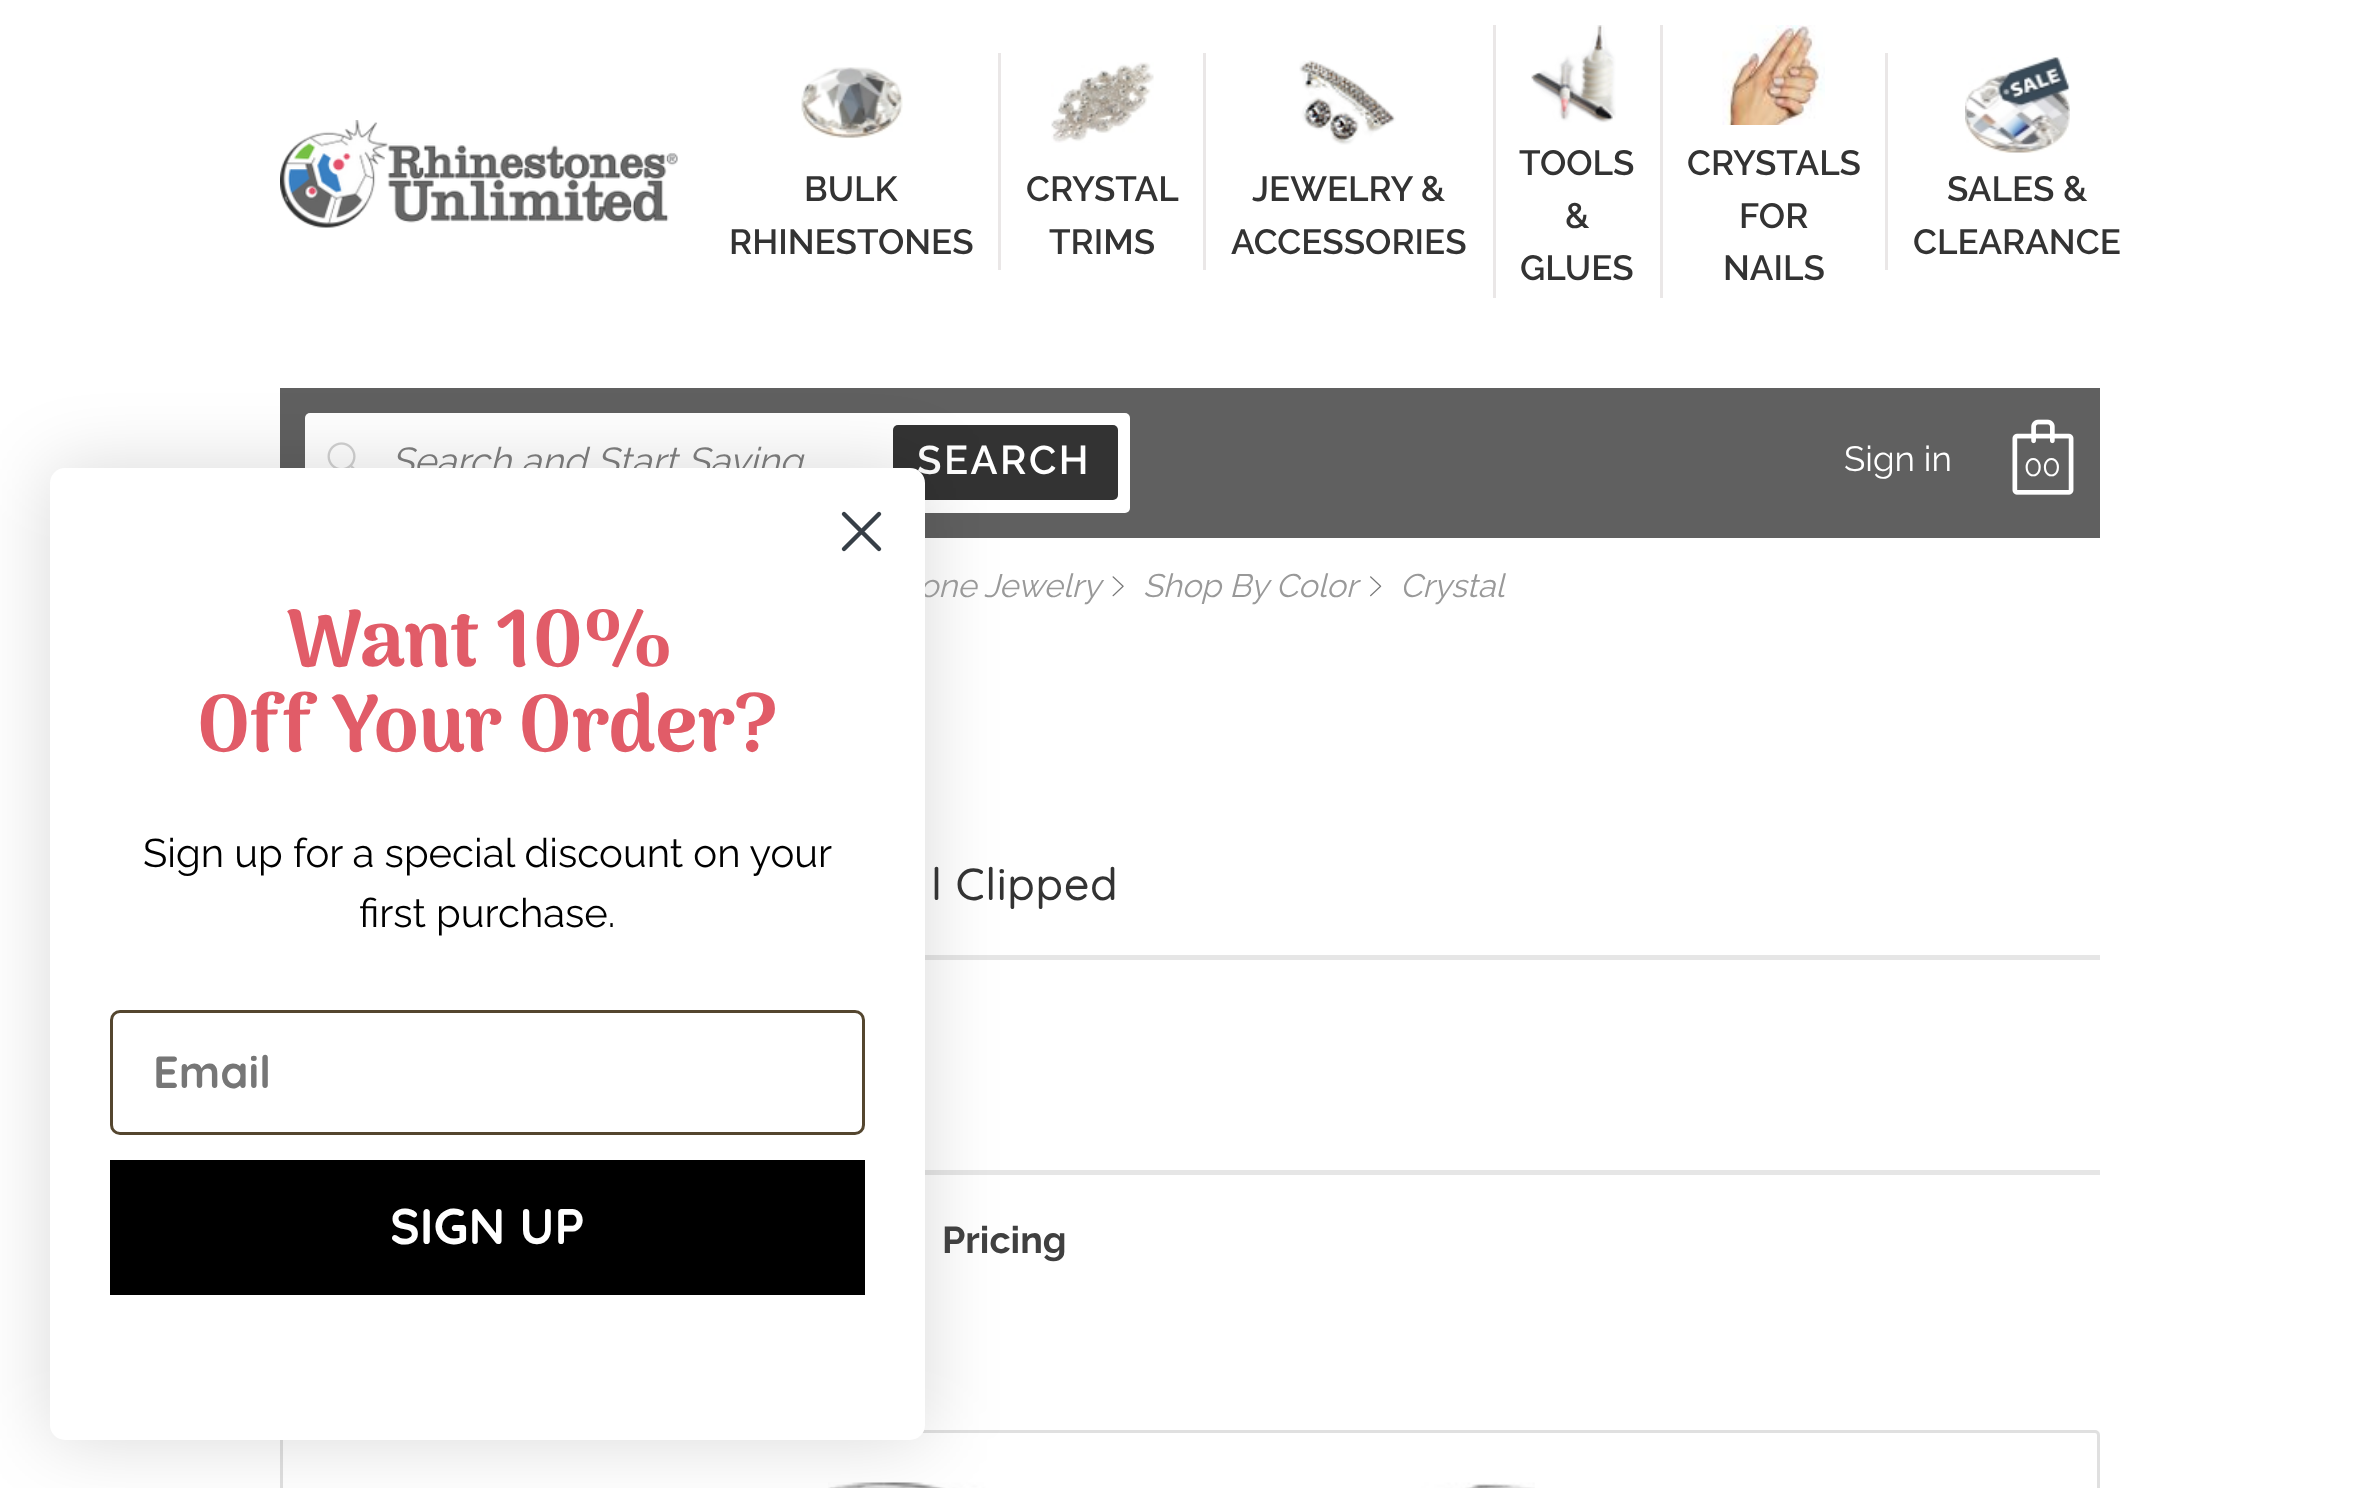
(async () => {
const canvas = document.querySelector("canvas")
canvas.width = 2377
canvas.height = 1488
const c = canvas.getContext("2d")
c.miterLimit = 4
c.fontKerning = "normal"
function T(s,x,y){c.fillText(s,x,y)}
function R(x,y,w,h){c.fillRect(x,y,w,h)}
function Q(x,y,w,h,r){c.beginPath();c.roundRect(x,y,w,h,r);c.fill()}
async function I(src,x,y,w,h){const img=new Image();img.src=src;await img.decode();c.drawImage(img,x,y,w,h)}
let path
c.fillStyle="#fff"
R(0,0,2377,1488)
await I("1.png",280,120,398,108)
await I("2.png",801,67,102,72)
c.font="600 35px Raleway"
c.fillStyle="#333"
T("BULK",804,201)
T("RHINESTONES",729,254)
c.fillStyle="#eae7e7"
R(998,53,3,217)
await I("3.png",1051,62,103,81)
c.fillStyle="#333"
T("CRYSTAL",1026,201)
T("TRIMS",1049,254)
c.fillStyle="#eae7e7"
R(1203,53,3,217)
await I("4.png",1299,60,97,85)
c.fillStyle="#333"
T("JEWELRY &",1252,201)
T("ACCESSORIES",1231,254)
c.fillStyle="#eae7e7"
R(1493,25,3,273)
await I("5.png",1531,25,85,98)
c.fillStyle="#333"
T("TOOLS",1519,175)
T("&",1565,228)
T("GLUES",1520,280)
c.fillStyle="#eae7e7"
R(1660,25,3,273)
await I("6.png",1722,25,103,100)
c.fillStyle="#333"
T("CRYSTALS",1687,175)
T("FOR",1739,228)
T("NAILS",1723,280)
c.fillStyle="#eae7e7"
R(1885,53,3,217)
await I("7.png",1965,57,105,96)
c.fillStyle="#333"
T("SALES &",1947,201)
T("CLEARANCE",1913,254)
c.fillStyle="#606060"
R(280,388,1820,150)
c.fillStyle="#fff"
Q(305,413,825,100,5)
await I("8.png",327,442,29,26)
c.font="italic 100 37.5px Raleway"
c.fillStyle="#808080"
T("Search and Start Saving.",391,474)
c.fillStyle="#333"
Q(893,425,225,75,5)
c.letterSpacing="2.5px"
c.font="600 40px Raleway"
c.fillStyle="#fff"
T("SEARCH",917,474)
c.letterSpacing="0px"
c.font="100 35px Raleway"
T("Sign in",1844,471)
c.font="100 30px Raleway"
T("00",2024,476)
await I("9.png",2012,419,62,76)
c.fillStyle="#e6e6e6"
R(925,955,1175,5)
R(925,1170,1175,5)
c.beginPath()
c.roundRect(281.5,1431.5,1817,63,3.5)
c.strokeStyle="#e0e0e0"
c.lineWidth=3
c.stroke()
await I("12.png",828,1482,707,6)
c.fillStyle="#00000026"
c.filter="blur(37.5px)"
c.beginPath()
c.roundRect(50,468,875,972,15)
c.fill()
c.filter="none"
c.font="italic 100 32.5px Raleway"
c.fillStyle="#999"
T("one Jewelry",919,597)
c.fillStyle="#fff"
Q(50,468,875,972,15)
path = new Path2D("M844 514l35 35m-35 0l35-35z")
c.strokeStyle="#373f47"
c.lineWidth=4.4
c.lineCap="round"
c.lineJoin="round"
c.stroke(path)
c.font="bold 80px Arima"
c.fillStyle="#e15c68"
T("Want 10%",286,666)
T("Off Your Order?",197,751)
c.font="100 40px Raleway"
c.fillStyle="#000"
T("Sign up for a special discount on your",143,867)
T("first purchase.",359,927)
c.beginPath()
c.roundRect(111.5,1011.5,752,122,8.5)
c.strokeStyle="#54462f"
c.lineWidth=3
c.lineJoin="miter"
c.stroke()
c.font="bold 45px Quicksand"
c.fillStyle="#767676"
T("Email",153,1088)
c.fillStyle="#000"
R(110,1160,755,135)
c.font="bold 50px Quicksand"
c.fillStyle="#fff"
T("SIGN UP",390,1244)
await I("10.png",1112,576,12,21)
c.font="italic 100 32.5px Raleway"
c.fillStyle="#999"
T("Shop By Color",1143,597)
await I("11.png",1370,576,12,21)
T("Crystal",1400,597)
c.letterSpacing="0.6px"
c.font="500 45px Quicksand"
c.fillStyle="#333"
T("l Clipped",931,900)
c.letterSpacing="0px"
c.font="bold 37.5px Raleway"
c.fillStyle="#404040"
T("Pricing",942,1253)
})()
